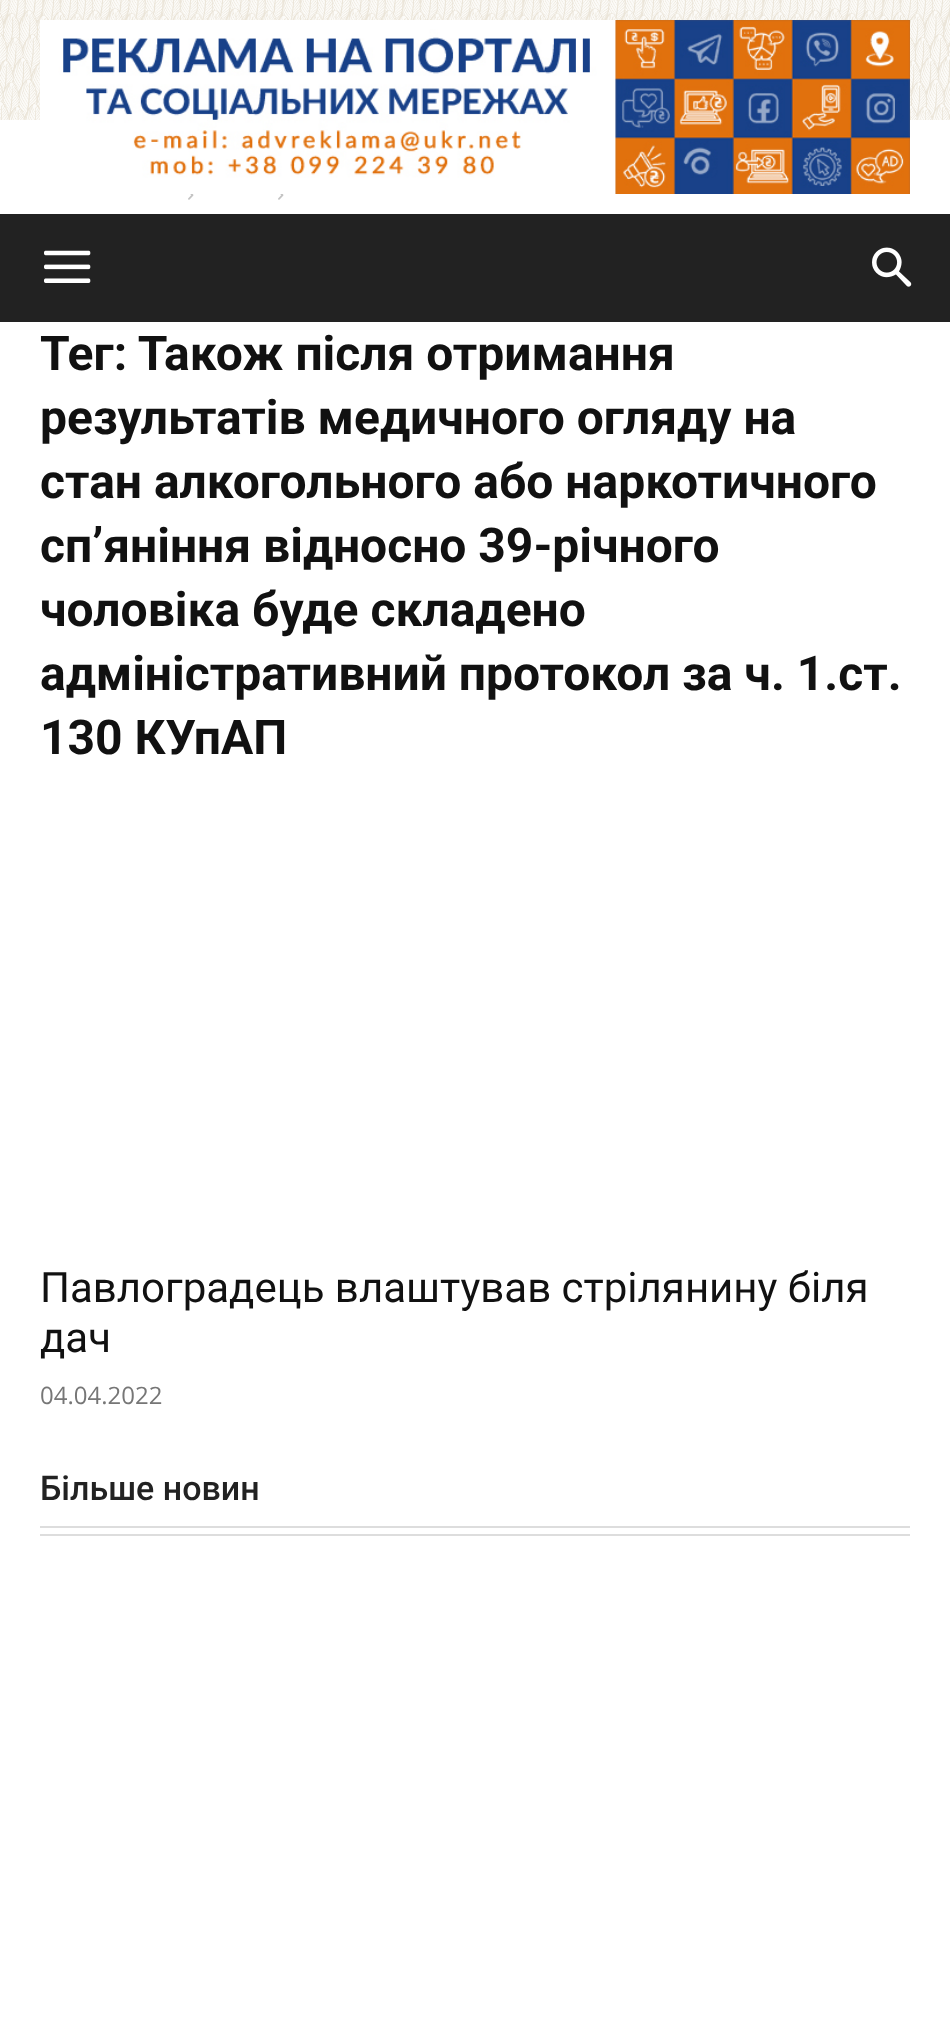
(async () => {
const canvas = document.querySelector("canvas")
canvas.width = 950
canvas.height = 2040
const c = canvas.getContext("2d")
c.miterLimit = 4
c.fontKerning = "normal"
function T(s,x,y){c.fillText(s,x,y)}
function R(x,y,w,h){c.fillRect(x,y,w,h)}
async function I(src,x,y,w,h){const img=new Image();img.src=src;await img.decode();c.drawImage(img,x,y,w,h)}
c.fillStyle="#fff"
R(0,0,950,2040)
await I("1.png",0,0,950,120)
await I("2.png",40,20,870,174)
c.fillStyle="#222"
R(0,214,950,108)
await I("3.png",44,250,47,33)
await I("4.png",872,247,40,40)
await I("5.png",188,194,6,6)
await I("5.png",278,194,6,6)
c.font="bold 48px Roboto"
c.fillStyle="#111"
T("Тег: Також після отримання",40,370)
T("результатів медичного огляду на",40,434)
T("стан алкогольного або наркотичного",40,498)
T("сп’яніння відносно 39-річного",40,562)
T("чоловіка буде складено",40,626)
T("адміністративний протокол за ч. 1.ст.",40,690)
T("130 КУпАП",40,754)
c.font="42px Roboto"
T("Павлоградець влаштував стрілянину біля",40,1302)
T("дач",40,1352)
c.font="24px Open Sans"
c.fillStyle="#767676"
T("04.04.2022",40,1404)
c.font="500 34px Roboto"
c.fillStyle="#222"
T("Більше новин",40,1500)
c.fillStyle="#ddd"
R(40,1526,870,2)
R(40,1534,870,2)
})()
